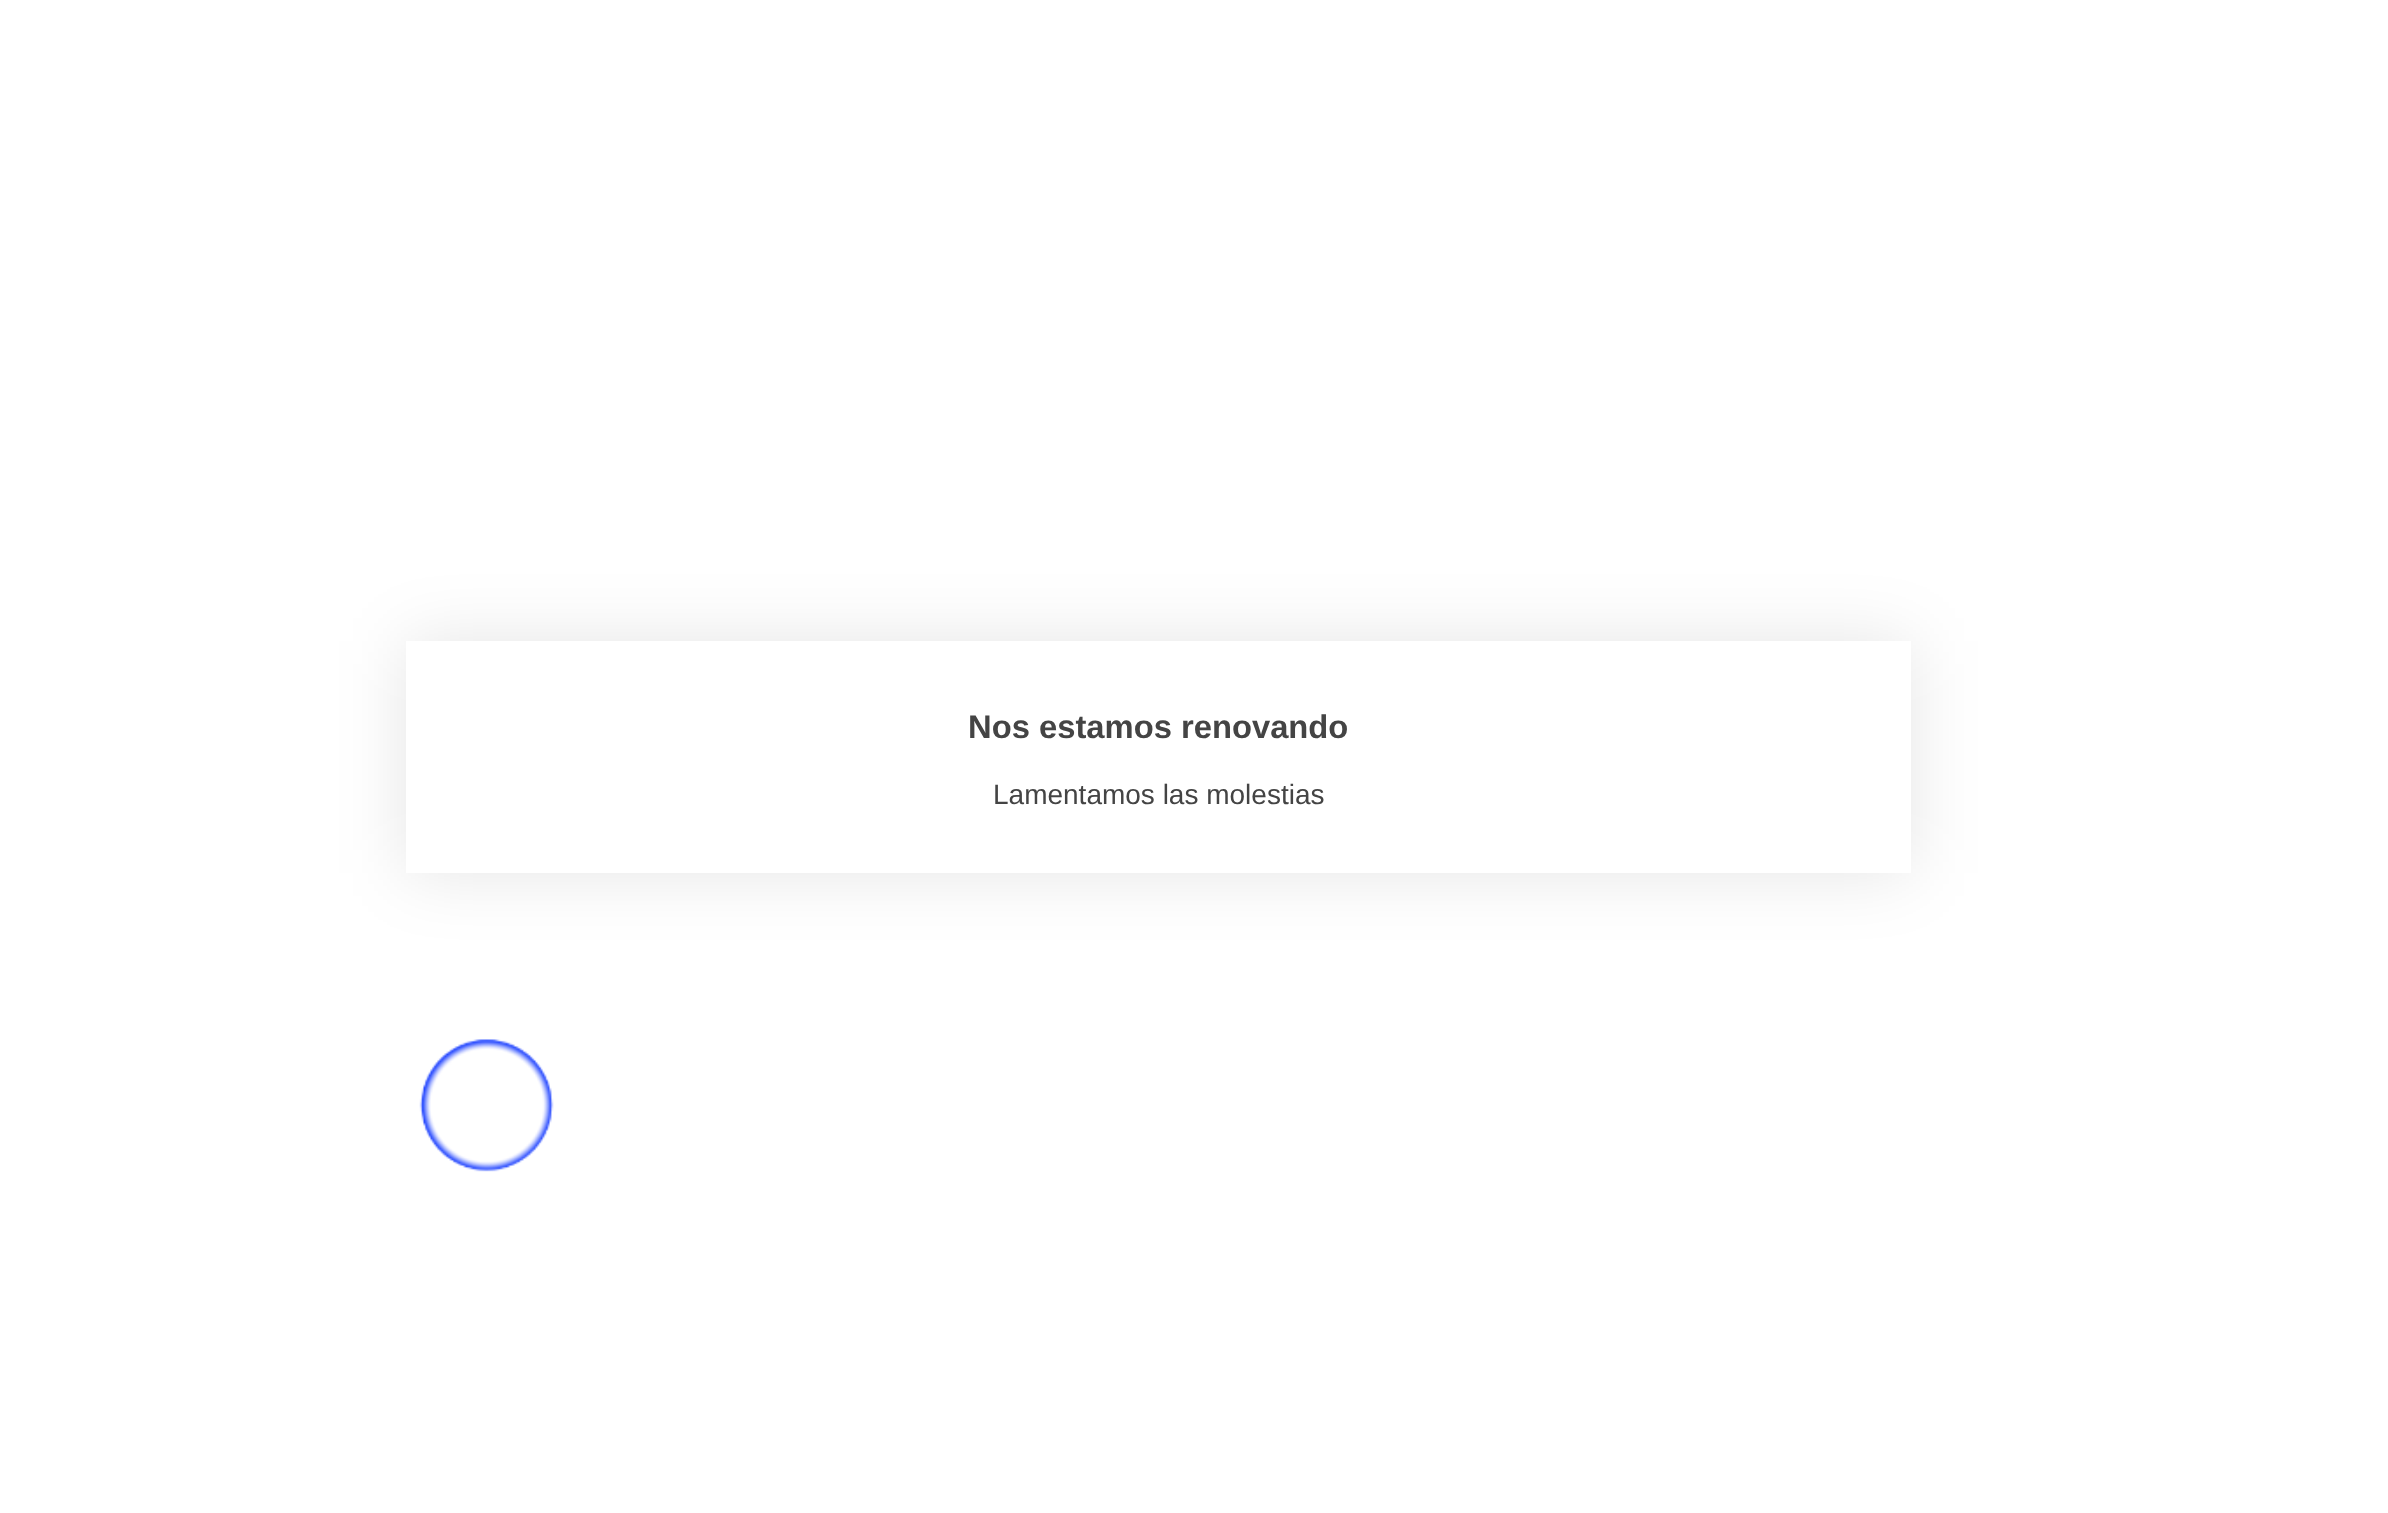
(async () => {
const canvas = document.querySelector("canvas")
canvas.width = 2388
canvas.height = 1513
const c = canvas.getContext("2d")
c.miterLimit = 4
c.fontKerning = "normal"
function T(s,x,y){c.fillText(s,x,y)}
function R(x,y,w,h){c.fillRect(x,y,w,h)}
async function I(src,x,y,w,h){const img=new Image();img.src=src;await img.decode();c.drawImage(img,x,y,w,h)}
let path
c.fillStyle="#fff"
R(0,0,2388,1513)
c.save()
path = new Path2D("M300 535h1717v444h-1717zm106 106h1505v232h-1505z")
c.clip(path,"evenodd")
c.fillStyle="#0000001a"
c.filter="blur(35px)"
c.beginPath()
c.rect(406,641,1505,232)
c.fill()
c.filter="none"
c.restore()
c.font="bold 32.75px Liberation Sans"
c.fillStyle="#444"
T("Nos estamos renovando",968,738)
c.font="28px Liberation Sans"
T("Lamentamos las molestias",993,804)
await I("1.png",419,1039,135,133)
})()
